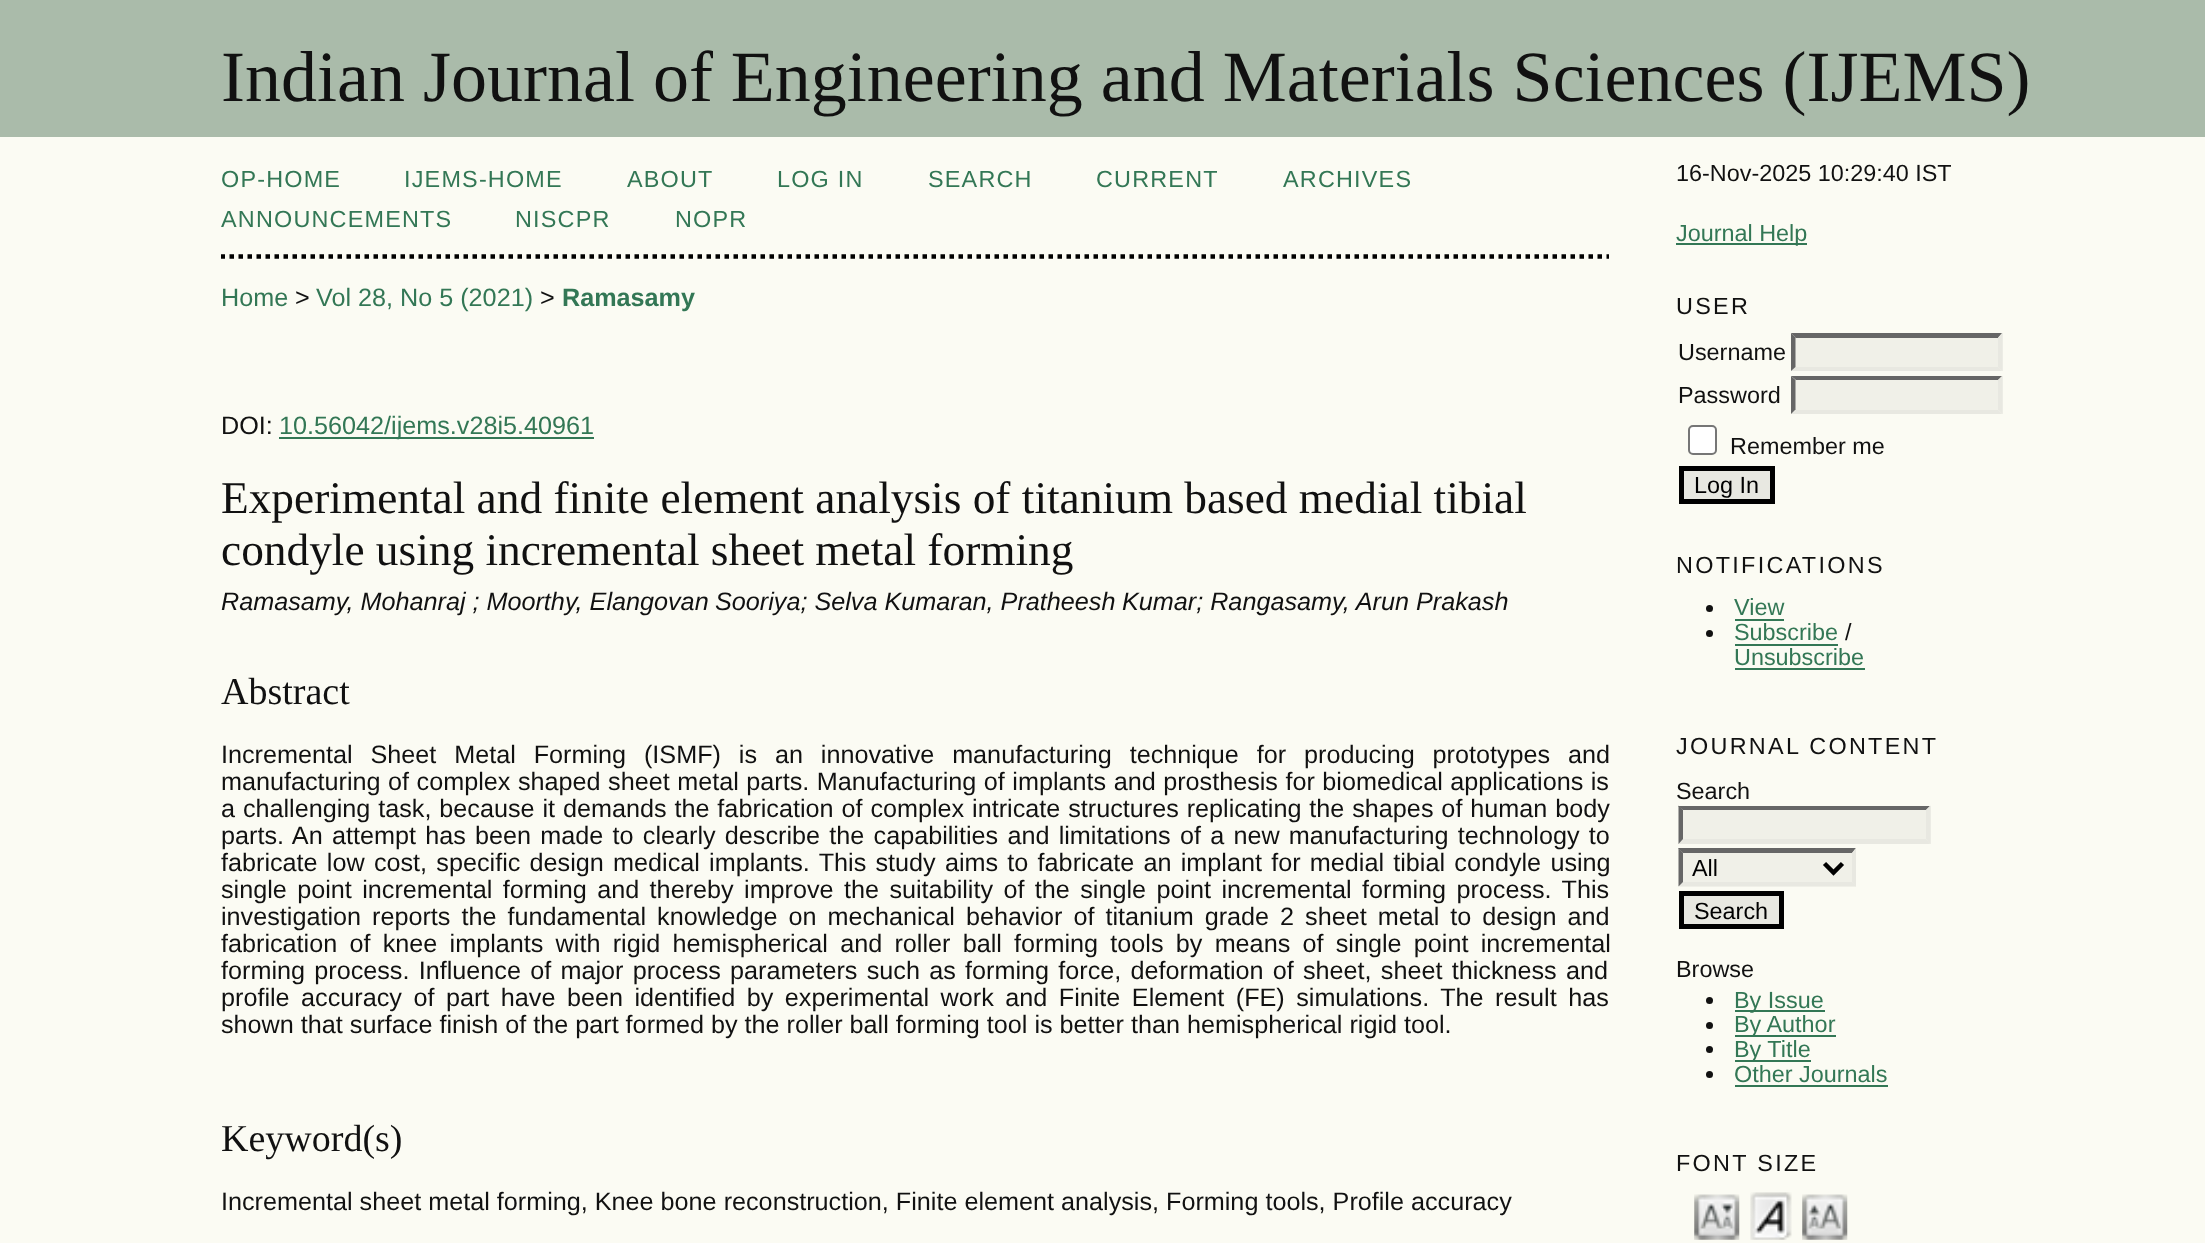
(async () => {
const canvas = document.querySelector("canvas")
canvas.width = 2205
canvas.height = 1243
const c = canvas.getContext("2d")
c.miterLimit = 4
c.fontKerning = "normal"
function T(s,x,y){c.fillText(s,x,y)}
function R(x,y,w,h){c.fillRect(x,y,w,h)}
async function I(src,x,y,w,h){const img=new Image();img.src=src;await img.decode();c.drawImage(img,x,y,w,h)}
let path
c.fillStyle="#fbfbf3"
R(0,0,2205,1243)
c.fillStyle="#aba"
R(0,0,2205,137)
c.font="72px Liberation Serif"
c.fillStyle="#111"
T("Indian Journal of Engineering and Materials Sciences (IJEMS)",221,101)
c.save()
c.beginPath()
c.rect(221,137,1388,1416)
c.clip()
path = new Path2D("M220.5 256.5h1388.5")
c.strokeStyle="#000"
c.lineWidth=4.5
c.setLineDash([4.5,4.5])
c.stroke(path)
c.restore()
c.letterSpacing="1.2px"
c.font="23.4px Liberation Sans"
c.fillStyle="#375"
T("OP-HOME",221,187)
T("IJEMS-HOME",404,187)
T("ABOUT",627,187)
T("LOG IN",777,187)
T("SEARCH",928,187)
T("CURRENT",1096,187)
T("ARCHIVES",1283,187)
T("ANNOUNCEMENTS",221,227)
T("NISCPR",515,227)
T("NOPR",675,227)
c.letterSpacing="0px"
c.font="25.2px Liberation Sans"
T("Home",221,306)
c.fillStyle="#111"
T(">",295,306)
c.fillStyle="#375"
T("Vol 28, No 5 (2021)",316,306)
c.fillStyle="#111"
T(">",540,306)
c.font="bold 25.2px Liberation Sans"
c.fillStyle="#375"
T("Ramasamy",562,306)
c.font="25.2px Liberation Sans"
c.fillStyle="#111"
T("DOI:",221,434)
c.fillStyle="#375"
R(279,437,315,2)
T("10.56042/ijems.v28i5.40961",279,434)
c.font="45.35px Liberation Serif"
c.fillStyle="#111"
T("Experimental and finite element analysis of titanium based medial tibial",221,513)
T("condyle using incremental sheet metal forming",221,565)
c.font="italic 25.2px Liberation Sans"
T("Ramasamy, Mohanraj ; Moorthy, Elangovan",221,610)
T("Sooriya; Selva Kumaran, Pratheesh",715,610)
T("Kumar; Rangasamy, Arun",1122,610)
T("Prakash",1416,610)
c.font="38px Liberation Serif"
T("Abstract",221,704)
c.wordSpacing="10.9px"
c.font="25.2px Liberation Sans"
T("Incremental Sheet Metal Forming (ISMF) is an innovative manufacturing technique for producing prototypes and",221,763)
c.wordSpacing="0.5px"
T("manufacturing of complex shaped sheet metal parts. Manufacturing of implants and prosthesis for biomedical applications is",221,790)
c.wordSpacing="0.9px"
T("a challenging task, because it demands the fabrication of complex intricate structures replicating the shapes of human body",221,817)
c.wordSpacing="2.25px"
T("parts. An attempt has been made to clearly describe the capabilities and limitations of a new manufacturing technology to",221,844)
T("fabricate low cost, specific design medical implants. This study aims to fabricate an implant for medial tibial condyle using",221,871)
c.wordSpacing="3.4px"
T("single point incremental forming and thereby improve the suitability of the single point incremental forming process. This",221,898)
c.wordSpacing="4px"
T("investigation reports the fundamental knowledge on mechanical behavior of titanium grade 2 sheet metal to design and",221,925)
c.wordSpacing="5.25px"
T("fabrication of knee implants with rigid hemispherical and roller ball forming tools by means of single point incremental",221,952)
c.wordSpacing="2.25px"
T("forming process. Influence of major process parameters such as forming force, deformation of sheet, sheet thickness and",221,979)
c.wordSpacing="4.5px"
T("profile accuracy of part have been identified by experimental work and Finite Element (FE) simulations. The result has",221,1006)
c.wordSpacing="0px"
T("shown that surface finish of the part formed by the roller ball forming tool is better than hemispherical rigid tool.",221,1033)
c.font="38px Liberation Serif"
T("Keyword(s)",221,1151)
c.font="25.2px Liberation Sans"
T("Incremental sheet metal forming, Knee bone reconstruction, Finite element analysis, Forming tools, Profile accuracy",221,1210)
c.font="23.4px Liberation Sans"
T("16-Nov-2025 10:29:40 IST",1676,181)
c.fillStyle="#375"
R(1676,243,131,2)
T("Journal Help",1676,241)
c.letterSpacing="2.3px"
c.fillStyle="#111"
T("USER",1676,314)
c.letterSpacing="0px"
T("Username",1678,360)
c.fillStyle="#f0f0e8"
R(1791,333,212,38)
c.fillStyle="#666"
path = new Path2D("M1791 333h211l-4 5h-202z")
c.fill(path)
c.fillStyle="#e8e8e1"
path = new Path2D("M2002.5 333v38l-4.5-4v-29.5z")
c.fill(path)
path = new Path2D("M2002 371h-211l5-4h202z")
c.fill(path)
c.fillStyle="#666"
path = new Path2D("M1791 371v-38l4.5 4.5v29.5z")
c.fill(path)
c.fillStyle="#111"
T("Password",1678,403)
c.fillStyle="#f0f0e8"
R(1791,376,212,38)
c.fillStyle="#666"
path = new Path2D("M1791 376h211l-4 4h-202z")
c.fill(path)
c.fillStyle="#e8e8e1"
path = new Path2D("M2002.5 376v38l-4.5-4.5v-29.5z")
c.fill(path)
path = new Path2D("M2002 414h-211l5-4h202z")
c.fill(path)
c.fillStyle="#666"
path = new Path2D("M1791 414v-38l4.5 4v29.5z")
c.fill(path)
c.fillStyle="#fff"
c.beginPath()
c.roundRect(1689,426,27,28,4)
c.fill()
c.strokeStyle="#767676"
c.lineWidth=2
c.stroke()
c.fillStyle="#111"
T("Remember me",1730,454)
c.fillStyle="#e8e8e1"
c.beginPath()
c.rect(1681.5,468.5,91,33)
c.fill()
c.strokeStyle="#000"
c.lineWidth=5
c.stroke()
c.fillStyle="#000"
T("Log In",1694,493)
c.letterSpacing="2.3px"
c.fillStyle="#111"
T("NOTIFICATIONS",1676,573)
c.beginPath()
c.arc(1709.5,608.5,3.5,0,7)
c.fill()
c.letterSpacing="0px"
c.fillStyle="#375"
T("View",1734,615)
R(1735,619,49,2)
c.fillStyle="#111"
c.beginPath()
c.arc(1709.5,633.5,3.5,0,7)
c.fill()
c.fillStyle="#375"
T("Subscribe",1734,640)
R(1735,644,103,2)
c.fillStyle="#111"
T("/",1845,640)
c.fillStyle="#375"
T("Unsubscribe",1734,665)
R(1735,668,130,2)
c.letterSpacing="2.3px"
c.fillStyle="#111"
T("JOURNAL CONTENT",1676,754)
c.letterSpacing="0px"
T("Search",1676,799)
c.fillStyle="#f0f0e8"
R(1679,806,252,38)
c.fillStyle="#666"
path = new Path2D("M1678 806h252l-4 4h-243z")
c.fill(path)
c.fillStyle="#e8e8e1"
path = new Path2D("M1930.5 805.5v38.5l-4.5-5v-29z")
c.fill(path)
path = new Path2D("M1930 844h-252l5-5h243z")
c.fill(path)
c.fillStyle="#666"
path = new Path2D("M1678.5 844v-38.5l4.5 4.5v29z")
c.fill(path)
c.fillStyle="#f0f0e8"
R(1679,848,177,39)
c.fillStyle="#666"
path = new Path2D("M1678 848h178l-4 5h-169z")
c.fill(path)
c.fillStyle="#e8e8e1"
path = new Path2D("M1856 848v38.5l-4-4.5v-29z")
c.fill(path)
path = new Path2D("M1856 886h-178l5-4h169z")
c.fill(path)
c.fillStyle="#666"
path = new Path2D("M1678.5 886.5v-38.5l4.5 5v29z")
c.fill(path)
path = new Path2D("M1824.5 863.5l9 9l9-9")
c.lineWidth=4.5
c.stroke(path)
c.fillStyle="#000"
T("All",1692,876)
c.fillStyle="#e8e8e1"
c.beginPath()
c.rect(1681.5,893.5,100,33)
c.fill()
c.lineWidth=5
c.stroke()
c.fillStyle="#000"
T("Search",1694,919)
c.fillStyle="#111"
T("Browse",1676,977)
c.beginPath()
c.arc(1709.5,1000.5,3.5,0,7)
c.fill()
c.fillStyle="#375"
R(1735,1010,90,2)
T("By Issue",1734,1008)
c.fillStyle="#111"
c.beginPath()
c.arc(1709.5,1025.5,3.5,0,7)
c.fill()
c.fillStyle="#375"
R(1735,1035,101,2)
T("By Author",1734,1032)
c.fillStyle="#111"
c.beginPath()
c.arc(1709.5,1049.5,3.5,0,7)
c.fill()
c.fillStyle="#375"
R(1735,1060,76,2)
T("By Title",1734,1057)
c.fillStyle="#111"
c.beginPath()
c.arc(1709.5,1074.5,3.5,0,7)
c.fill()
c.fillStyle="#375"
T("Other Journals",1734,1082)
R(1735,1085,153,2)
c.letterSpacing="2.3px"
c.fillStyle="#111"
T("FONT SIZE",1676,1171)
await I("1.png",1694,1194,46,46)
await I("2.png",1750,1192,42,48)
await I("3.png",1802,1194,46,46)
})()
